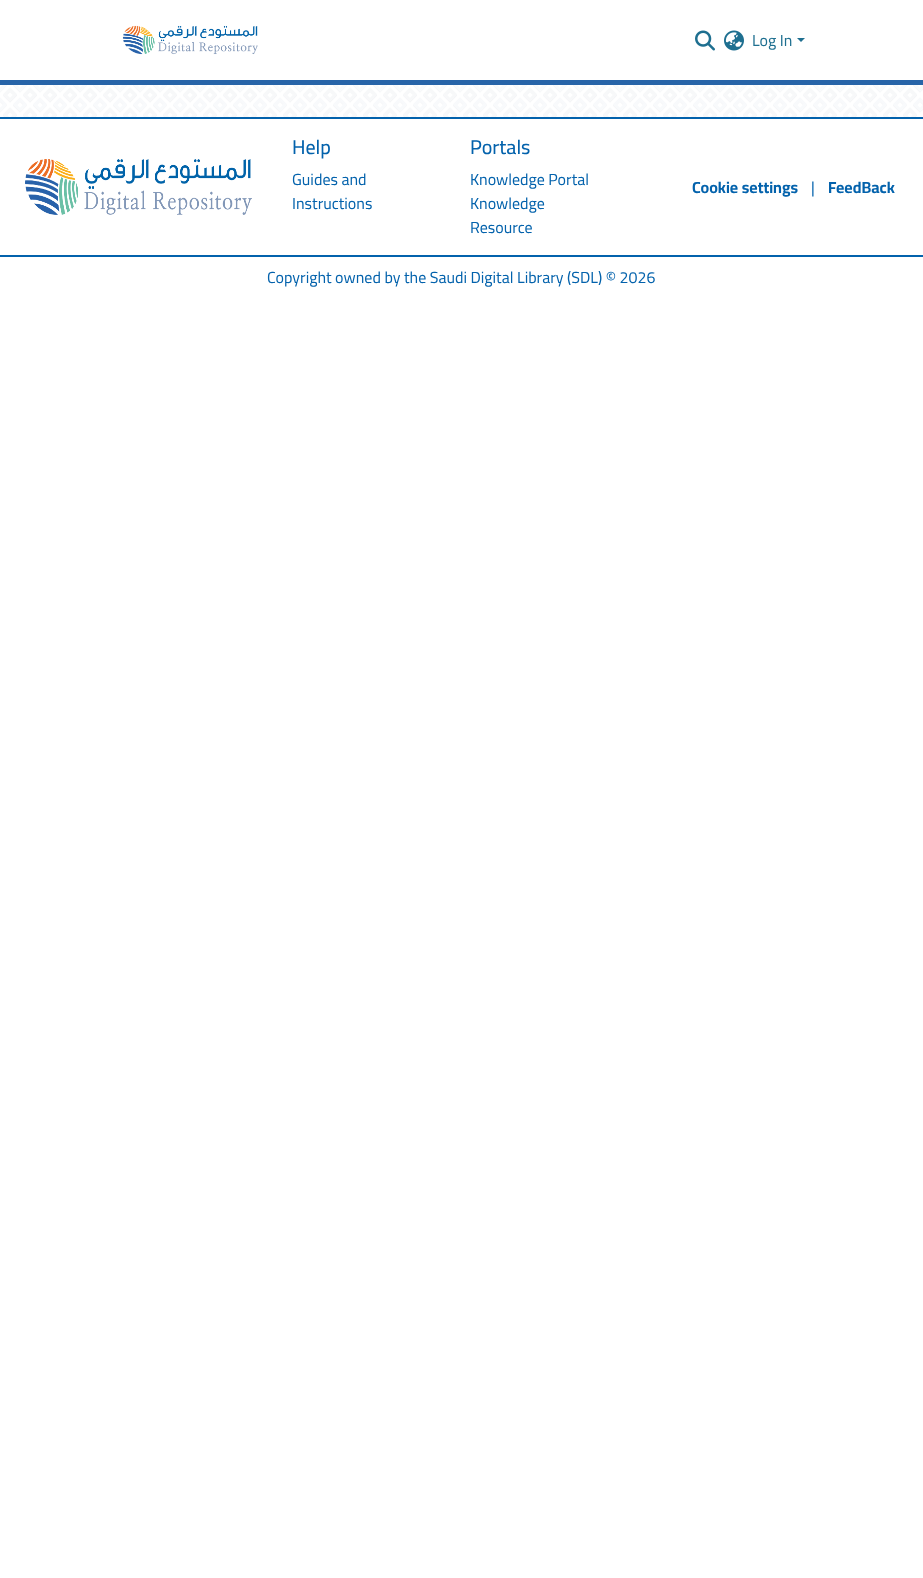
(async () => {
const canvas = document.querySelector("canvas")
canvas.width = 923
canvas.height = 1578
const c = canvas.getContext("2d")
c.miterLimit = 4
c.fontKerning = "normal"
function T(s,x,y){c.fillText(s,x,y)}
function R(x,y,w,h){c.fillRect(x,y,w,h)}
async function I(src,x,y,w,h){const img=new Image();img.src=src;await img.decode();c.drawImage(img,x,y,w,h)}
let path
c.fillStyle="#fff"
R(0,0,923,1578)
c.fillStyle="#2764a8"
R(0,80,923,5)
await I("1.png",122,25,136,30)
await I("2.png",695,30,20,21)
await I("3.png",724,30,20,21)
c.font="16px Cairo"
c.fillStyle="#1e6f90"
T("Log In",752,46)
path = new Path2D("M797 38h8l-4 4z")
c.fill(path)
await I("4.png",0,85,923,32)
c.fillStyle="#0362ac"
R(0,117,923,2)
R(0,255,923,2)
await I("5.png",25,159,227,56)
c.font="500 20px Cairo"
T("Help",292,154)
c.font="16px Cairo"
T("Guides and",292,185)
T("Instructions",292,209)
c.font="500 20px Cairo"
T("Portals",470,154)
c.font="16px Cairo"
T("Knowledge Portal",470,185)
T("Knowledge",470,209)
T("Resource",470,233)
c.font="bold 16px Cairo"
T("Cookie settings",692,193)
c.font="16px Cairo"
T("|",811,193)
c.font="bold 16px Cairo"
T("FeedBack",828,193)
c.font="16px Cairo"
T("Copyright owned by the Saudi Digital Library (SDL) © 2026",267,283)
})()
